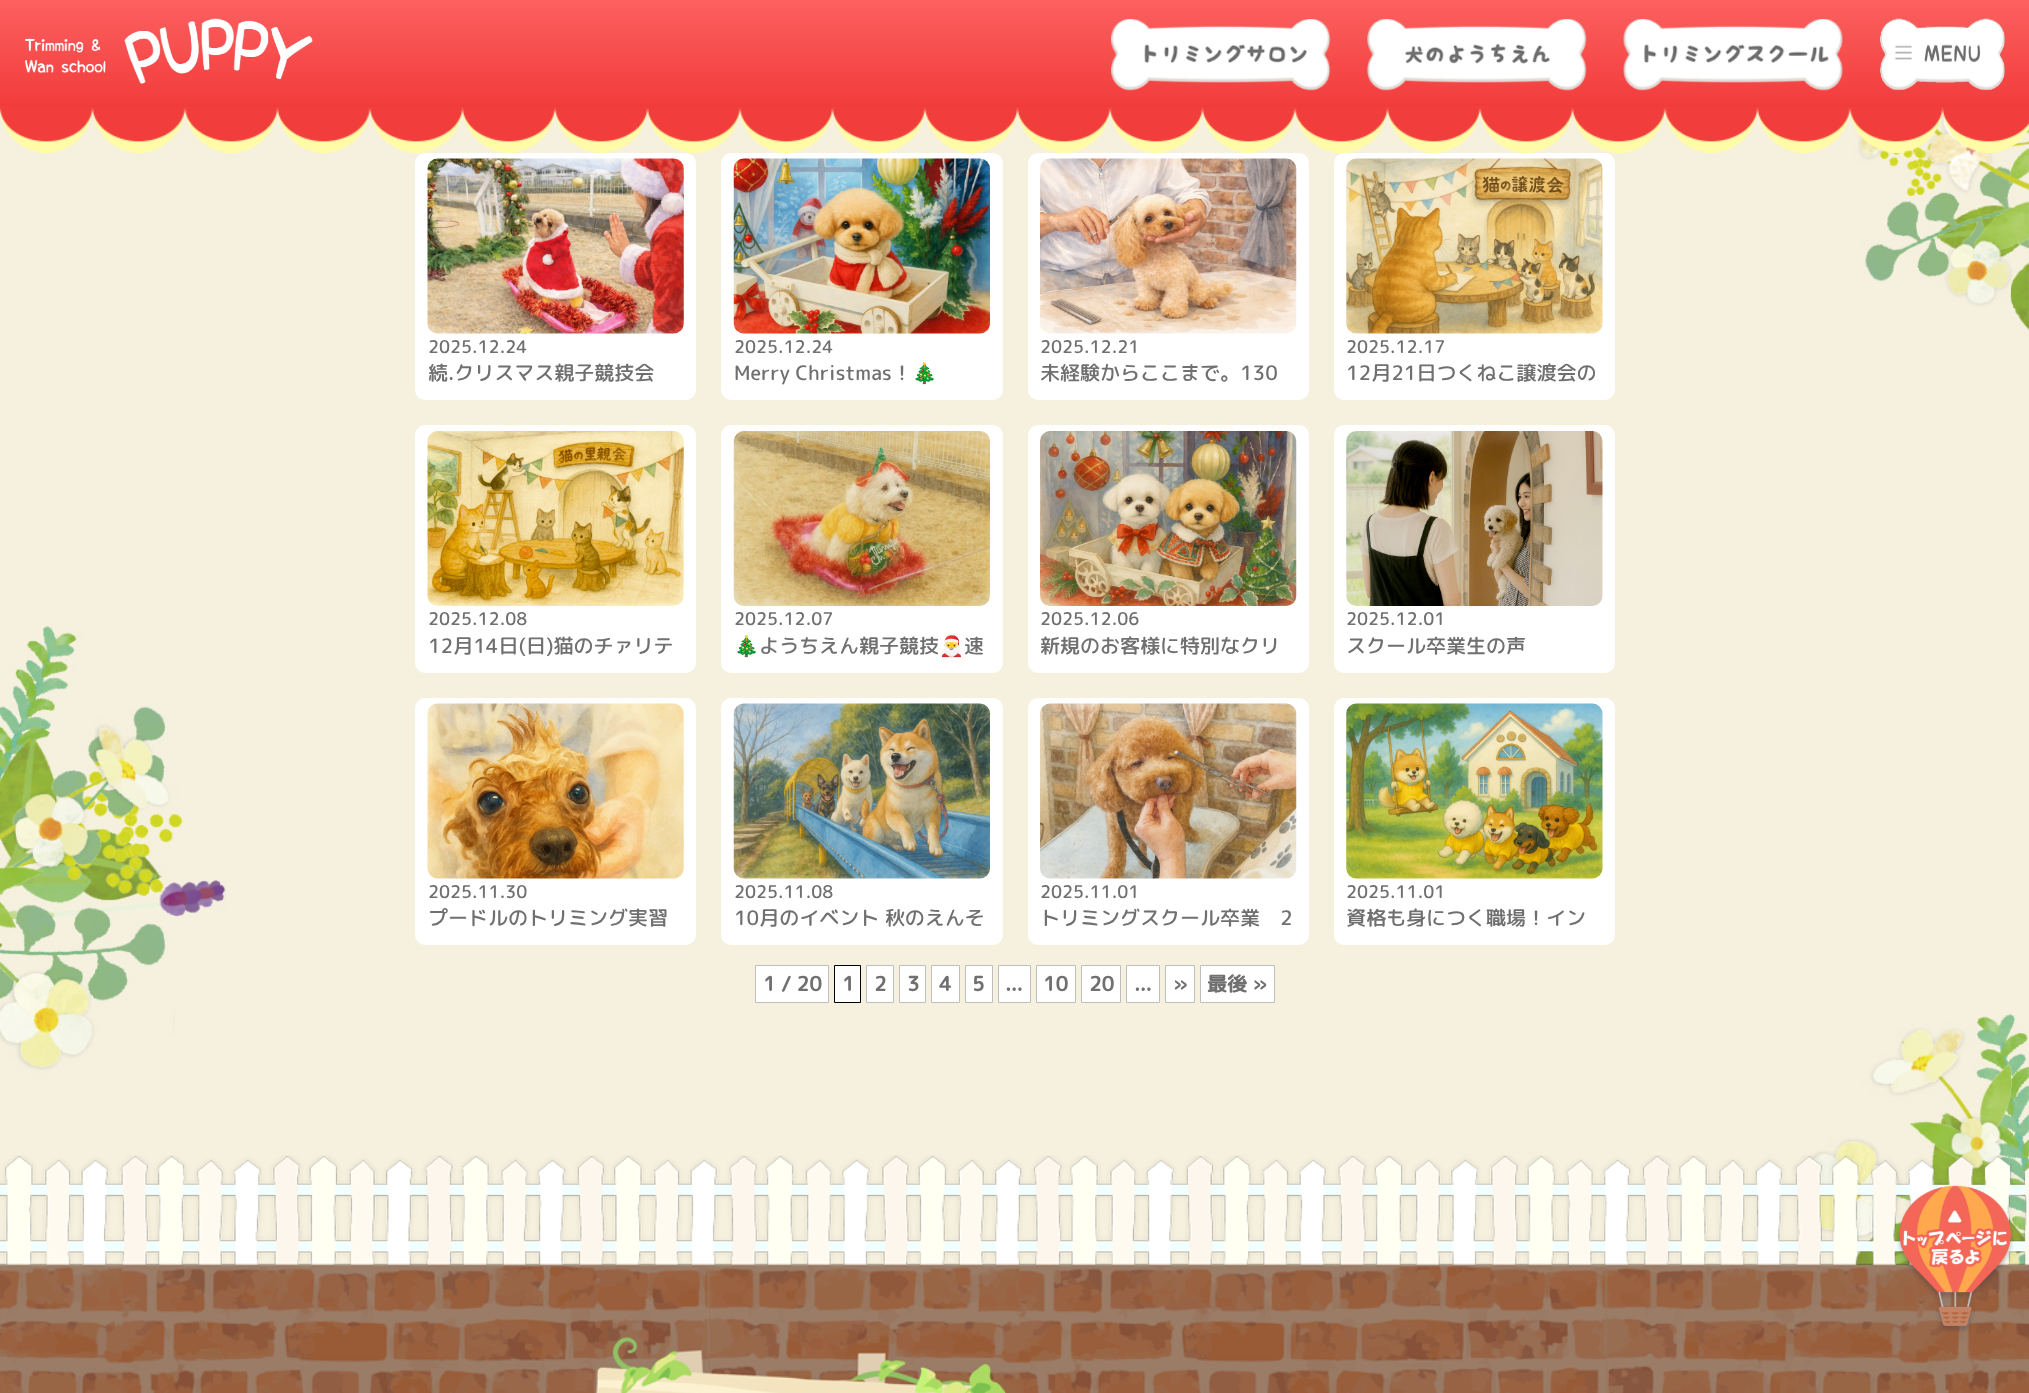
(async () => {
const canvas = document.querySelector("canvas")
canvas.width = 2029
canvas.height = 1393
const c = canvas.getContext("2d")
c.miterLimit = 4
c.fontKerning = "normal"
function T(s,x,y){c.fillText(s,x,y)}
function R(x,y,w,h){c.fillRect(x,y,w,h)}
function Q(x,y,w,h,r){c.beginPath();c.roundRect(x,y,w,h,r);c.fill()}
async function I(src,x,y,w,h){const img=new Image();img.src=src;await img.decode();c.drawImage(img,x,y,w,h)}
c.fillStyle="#fff"
R(0,0,2029,1393)
await I("1.png",0,108,2029,1285)
await I("2.png",0,0,2029,153)
await I("3.png",25,18,288,66)
await I("4.png",1111,19,220,72)
await I("5.png",1367,19,220,72)
await I("6.png",1623,19,220,72)
await I("7.png",1880,18,125,73)
Q(415,153,281,247,10)
await I("8.png",427,158,257,176)
c.font="500 17.5px 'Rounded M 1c'"
c.fillStyle="#707070"
T("2025.12.24",428,353)
c.font="500 20px 'Rounded M 1c'"
T("続.クリスマス親子競技会",428,380)
c.fillStyle="#fff"
Q(721,153,282,247,10)
await I("9.png",733,158,257,176)
c.font="500 17.5px 'Rounded M 1c'"
c.fillStyle="#707070"
T("2025.12.24",734,353)
c.font="500 20px 'Rounded M 1c'"
T("Merry Christmas！",734,380)
c.font="20px Noto Color Emoji"
T("🎄",912,380)
c.fillStyle="#fff"
Q(1028,153,281,247,10)
await I("10.png",1040,158,257,176)
c.font="500 17.5px 'Rounded M 1c'"
c.fillStyle="#707070"
T("2025.12.21",1040,353)
c.font="500 20px 'Rounded M 1c'"
T("未経験からここまで。130",1040,380)
c.fillStyle="#fff"
Q(1334,153,281,247,10)
await I("11.png",1346,158,257,176)
c.font="500 17.5px 'Rounded M 1c'"
c.fillStyle="#707070"
T("2025.12.17",1346,353)
c.font="500 20px 'Rounded M 1c'"
T("12月21日つくねこ譲渡会の",1346,380)
c.fillStyle="#fff"
Q(415,425,281,248,10)
await I("12.png",427,431,257,175)
c.font="500 17.5px 'Rounded M 1c'"
c.fillStyle="#707070"
T("2025.12.08",428,625)
c.font="500 20px 'Rounded M 1c'"
T("12月14日(日)猫のチァリテ",428,653)
c.fillStyle="#fff"
Q(721,425,282,248,10)
await I("13.png",733,431,257,175)
c.font="500 17.5px 'Rounded M 1c'"
c.fillStyle="#707070"
T("2025.12.07",734,625)
c.save()
c.beginPath()
c.rect(734,631,256,29)
c.clip()
c.font="20px Noto Color Emoji"
T("🎄",734,653)
c.restore()
c.font="500 20px 'Rounded M 1c'"
T("ようちえん親子競技",759,653)
c.font="20px Noto Color Emoji"
T("🎅",939,653)
c.font="500 20px 'Rounded M 1c'"
T("速",964,653)
c.fillStyle="#fff"
Q(1028,425,281,248,10)
await I("14.png",1040,431,257,175)
c.font="500 17.5px 'Rounded M 1c'"
c.fillStyle="#707070"
T("2025.12.06",1040,625)
c.font="500 20px 'Rounded M 1c'"
T("新規のお客様に特別なクリ",1040,653)
c.fillStyle="#fff"
Q(1334,425,281,248,10)
await I("15.png",1346,431,257,175)
c.font="500 17.5px 'Rounded M 1c'"
c.fillStyle="#707070"
T("2025.12.01",1346,625)
c.font="500 20px 'Rounded M 1c'"
T("スクール卒業生の声",1346,653)
c.fillStyle="#fff"
Q(415,698,281,247,10)
await I("16.png",427,703,257,176)
c.font="500 17.5px 'Rounded M 1c'"
c.fillStyle="#707070"
T("2025.11.30",428,898)
c.font="500 20px 'Rounded M 1c'"
T("プードルのトリミング実習",428,925)
c.fillStyle="#fff"
Q(721,698,282,247,10)
await I("17.png",733,703,257,176)
c.font="500 17.5px 'Rounded M 1c'"
c.fillStyle="#707070"
T("2025.11.08",734,898)
c.font="500 20px 'Rounded M 1c'"
T("10月のイベント 秋のえんそ",734,925)
c.fillStyle="#fff"
Q(1028,698,281,247,10)
await I("18.png",1040,703,257,176)
c.font="500 17.5px 'Rounded M 1c'"
c.fillStyle="#707070"
T("2025.11.01",1040,898)
c.font="500 20px 'Rounded M 1c'"
T("トリミングスクール卒業　2",1040,925)
c.fillStyle="#fff"
Q(1334,698,281,247,10)
await I("19.png",1346,703,257,176)
c.font="500 17.5px 'Rounded M 1c'"
c.fillStyle="#707070"
T("2025.11.01",1346,898)
c.font="500 20px 'Rounded M 1c'"
T("資格も身につく職場！イン",1346,925)
c.fillStyle="#fff"
c.beginPath()
c.rect(755.5,965.5,73,37)
c.fill()
c.strokeStyle="#bfbfbf"
c.stroke()
c.font="bold 20px 'Rounded M 1c'"
c.fillStyle="#707070"
T("1 / 20",763,991)
c.fillStyle="#fff"
c.beginPath()
c.rect(834.5,965.5,26,37)
c.fill()
c.strokeStyle="#000"
c.stroke()
c.fillStyle="#707070"
T("1",842,991)
c.fillStyle="#fff"
c.beginPath()
c.rect(866.5,965.5,27,37)
c.fill()
c.strokeStyle="#bfbfbf"
c.stroke()
c.fillStyle="#707070"
T("2",874,991)
c.fillStyle="#fff"
c.beginPath()
c.rect(899.5,965.5,26,37)
c.fill()
c.stroke()
c.fillStyle="#707070"
T("3",907,991)
c.fillStyle="#fff"
c.beginPath()
c.rect(931.5,965.5,28,37)
c.fill()
c.stroke()
c.fillStyle="#707070"
T("4",939,991)
c.fillStyle="#fff"
c.beginPath()
c.rect(965.5,965.5,27,37)
c.fill()
c.stroke()
c.fillStyle="#707070"
T("5",972,991)
c.fillStyle="#fff"
c.beginPath()
c.rect(998.5,965.5,32,37)
c.fill()
c.stroke()
c.fillStyle="#707070"
T("...",1005,991)
c.fillStyle="#fff"
c.beginPath()
c.rect(1036.5,965.5,39,37)
c.fill()
c.stroke()
c.fillStyle="#707070"
T("10",1043,991)
c.fillStyle="#fff"
c.beginPath()
c.rect(1081.5,965.5,39,37)
c.fill()
c.stroke()
c.fillStyle="#707070"
T("20",1089,991)
c.fillStyle="#fff"
c.beginPath()
c.rect(1126.5,965.5,33,37)
c.fill()
c.stroke()
c.fillStyle="#707070"
T("...",1134,991)
c.fillStyle="#fff"
c.beginPath()
c.rect(1165.5,965.5,29,37)
c.fill()
c.stroke()
c.fillStyle="#707070"
T("»",1173,991)
c.fillStyle="#fff"
c.beginPath()
c.rect(1200.5,965.5,74,37)
c.fill()
c.stroke()
c.fillStyle="#707070"
T("最後 »",1207,991)
await I("20.png",0,1155,2029,238)
await I("21.png",1897,1185,117,147)
})()
